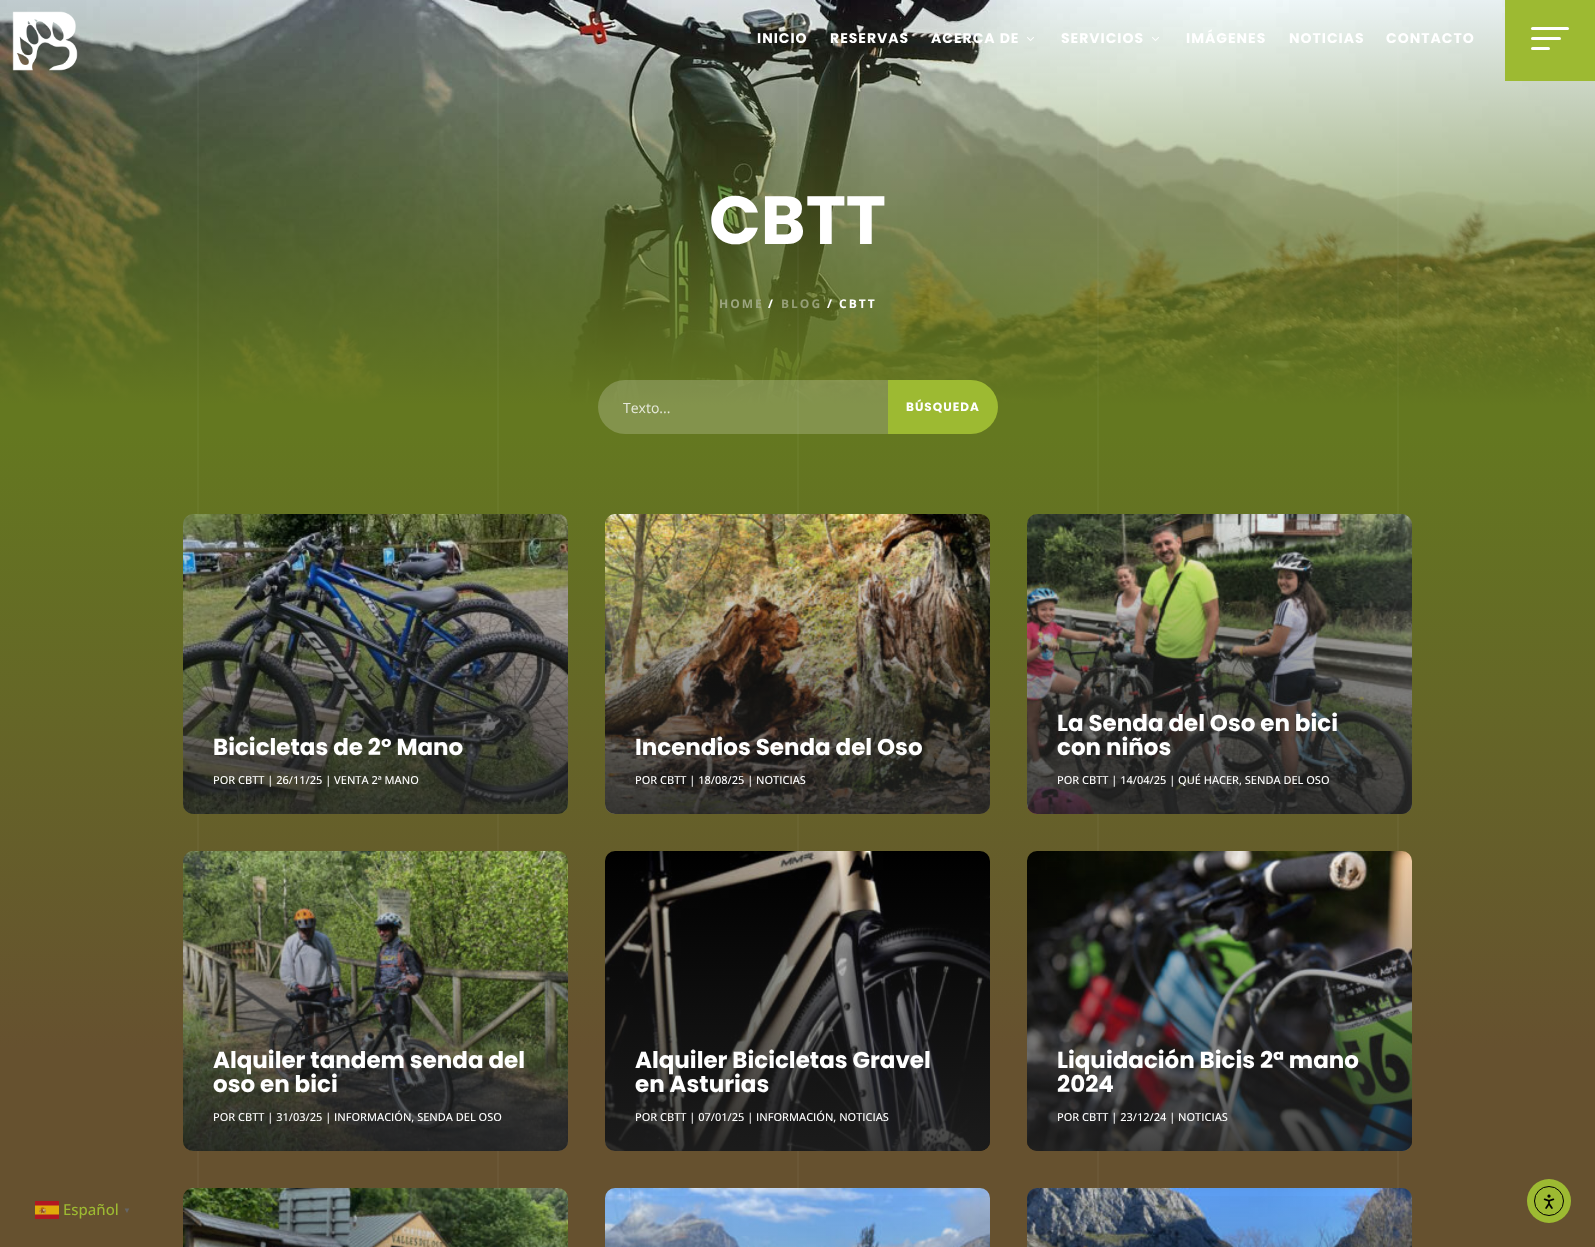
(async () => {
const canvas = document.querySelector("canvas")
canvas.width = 1595
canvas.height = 1247
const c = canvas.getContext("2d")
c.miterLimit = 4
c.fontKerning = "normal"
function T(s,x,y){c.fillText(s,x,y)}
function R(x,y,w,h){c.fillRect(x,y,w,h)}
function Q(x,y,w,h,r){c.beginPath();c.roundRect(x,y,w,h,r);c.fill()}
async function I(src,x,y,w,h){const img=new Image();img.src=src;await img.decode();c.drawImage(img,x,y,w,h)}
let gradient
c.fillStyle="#fff"
R(0,0,1595,1247)
await I("4.png",0,0,1595,405)
await I("1.png",12,11,66,60)
await I("5.png",197,0,1202,405)
c.letterSpacing="1px"
c.font="bold 14px Poppins"
T("INICIO",757,43)
T("RESERVAS",830,43)
T("ACERCA DE",931,43)
await I("2.png",1027,37,7,4)
T("SERVICIOS",1061,43)
await I("3.png",1152,37,7,4)
T("IMÁGENES",1186,43)
T("NOTICIAS",1289,43)
T("CONTACTO",1386,43)
c.fillStyle="#9dba32"
R(1505,0,90,81)
c.fillStyle="#fff"
Q(1531,27,38,3,1.5)
Q(1531,37,30,3,1.5)
Q(1531,47,19,3,1.5)
c.letterSpacing="0px"
c.font="bold 68px Poppins"
T("CBTT",709,244)
c.letterSpacing="2px"
c.font="bold 12px Open Sans"
c.fillStyle="#9ca680"
T("HOME",719,308)
c.fillStyle="#fff"
T("/",768,308)
c.fillStyle="#969f78"
T("BLOG",781,308)
c.fillStyle="#fff"
T("/ CBTT",827,308)
c.fillStyle="#647820"
R(0,405,1595,28)
await I("6.png",197,405,1202,28)
await I("7.png",0,433,1595,814)
c.fillStyle="#ffffff33"
c.beginPath()
c.roundRect(598,380,290,54,[27,0,0,27])
c.fill()
c.letterSpacing="0px"
c.font="14px Open Sans"
c.fillStyle="#e6e9db"
T("Texto...",623,413)
c.fillStyle="#9dba32"
c.beginPath()
c.roundRect(888,380,110,54,[0,27,27,0])
c.fill()
c.letterSpacing="1px"
c.font="bold 12px Poppins"
c.fillStyle="#fff"
T("BÚSQUEDA",906,411)
await I("8.png",183,514,385,300)
gradient = c.createLinearGradient(376,514,376,814)
gradient.addColorStop(0,"#20202000")
gradient.addColorStop(1,"#202020d9")
c.fillStyle = gradient
Q(183,514,385,300,10)
c.letterSpacing="0px"
c.font="bold 23px Poppins"
c.fillStyle="#fff"
T("Bicicletas de 2º Mano",213,755)
c.font="500 11px Open Sans"
T("POR CBTT | 26/11/25 | VENTA 2ª MANO",213,784)
await I("9.png",183,851,385,300)
gradient = c.createLinearGradient(376,851,376,1151)
gradient.addColorStop(0,"#20202000")
gradient.addColorStop(1,"#202020d9")
c.fillStyle = gradient
Q(183,851,385,300,10)
c.font="bold 23px Poppins"
c.fillStyle="#fff"
T("Alquiler tandem senda del",213,1068)
T("oso en bici",213,1092)
c.font="500 11px Open Sans"
T("POR CBTT | 31/03/25 | INFORMACIÓN, SENDA DEL OSO",213,1121)
await I("10.png",183,1188,385,59)
gradient = c.createLinearGradient(376,1188,376,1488)
gradient.addColorStop(0,"#20202000")
gradient.addColorStop(1,"#202020d9")
c.fillStyle = gradient
R(183,1196,385,51)
await I("11.png",605,514,385,300)
gradient = c.createLinearGradient(798,514,798,814)
gradient.addColorStop(0,"#20202000")
gradient.addColorStop(1,"#202020d9")
c.fillStyle = gradient
Q(605,514,385,300,10)
c.font="bold 23px Poppins"
c.fillStyle="#fff"
T("Incendios Senda del Oso",635,755)
c.font="500 11px Open Sans"
T("POR CBTT | 18/08/25 | NOTICIAS",635,784)
await I("12.png",605,851,385,300)
gradient = c.createLinearGradient(798,851,798,1151)
gradient.addColorStop(0,"#20202000")
gradient.addColorStop(1,"#202020d9")
c.fillStyle = gradient
Q(605,851,385,300,10)
c.font="bold 23px Poppins"
c.fillStyle="#fff"
T("Alquiler Bicicletas Gravel",635,1068)
T("en Asturias",635,1092)
c.font="500 11px Open Sans"
T("POR CBTT | 07/01/25 | INFORMACIÓN, NOTICIAS",635,1121)
await I("13.png",605,1188,385,59)
gradient = c.createLinearGradient(798,1188,798,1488)
gradient.addColorStop(0,"#20202000")
gradient.addColorStop(1,"#202020d9")
c.fillStyle = gradient
R(605,1196,385,51)
await I("14.png",1027,514,385,300)
gradient = c.createLinearGradient(1220,514,1220,814)
gradient.addColorStop(0,"#20202000")
gradient.addColorStop(1,"#202020d9")
c.fillStyle = gradient
Q(1027,514,385,300,10)
c.font="bold 23px Poppins"
c.fillStyle="#fff"
T("La Senda del Oso en bici",1057,731)
T("con niños",1057,755)
c.font="500 11px Open Sans"
T("POR CBTT | 14/04/25 | QUÉ HACER, SENDA DEL OSO",1057,784)
await I("15.png",1027,851,385,300)
gradient = c.createLinearGradient(1220,851,1220,1151)
gradient.addColorStop(0,"#20202000")
gradient.addColorStop(1,"#202020d9")
c.fillStyle = gradient
Q(1027,851,385,300,10)
c.font="bold 23px Poppins"
c.fillStyle="#fff"
T("Liquidación Bicis 2ª mano",1057,1068)
T("2024",1057,1092)
c.font="500 11px Open Sans"
T("POR CBTT | 23/12/24 | NOTICIAS",1057,1121)
await I("16.png",1027,1188,385,59)
gradient = c.createLinearGradient(1220,1188,1220,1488)
gradient.addColorStop(0,"#20202000")
gradient.addColorStop(1,"#202020d9")
c.fillStyle = gradient
R(1027,1196,385,51)
await I("17.png",35,1201,24,18)
c.font="500 15px Open Sans"
c.fillStyle="#9dba32"
T("Español",63,1215)
c.font="bold 8px Liberation Sans"
c.fillStyle="#666"
T("▼",123,1213)
c.fillStyle="#9dba32"
c.beginPath()
c.arc(1549,1201,22,0,7)
c.fill()
c.beginPath()
c.arc(1549,1201,14.5,0,7)
c.strokeStyle="#000"
c.stroke()
await I("18.png",1543,1194,12,15)
})()
